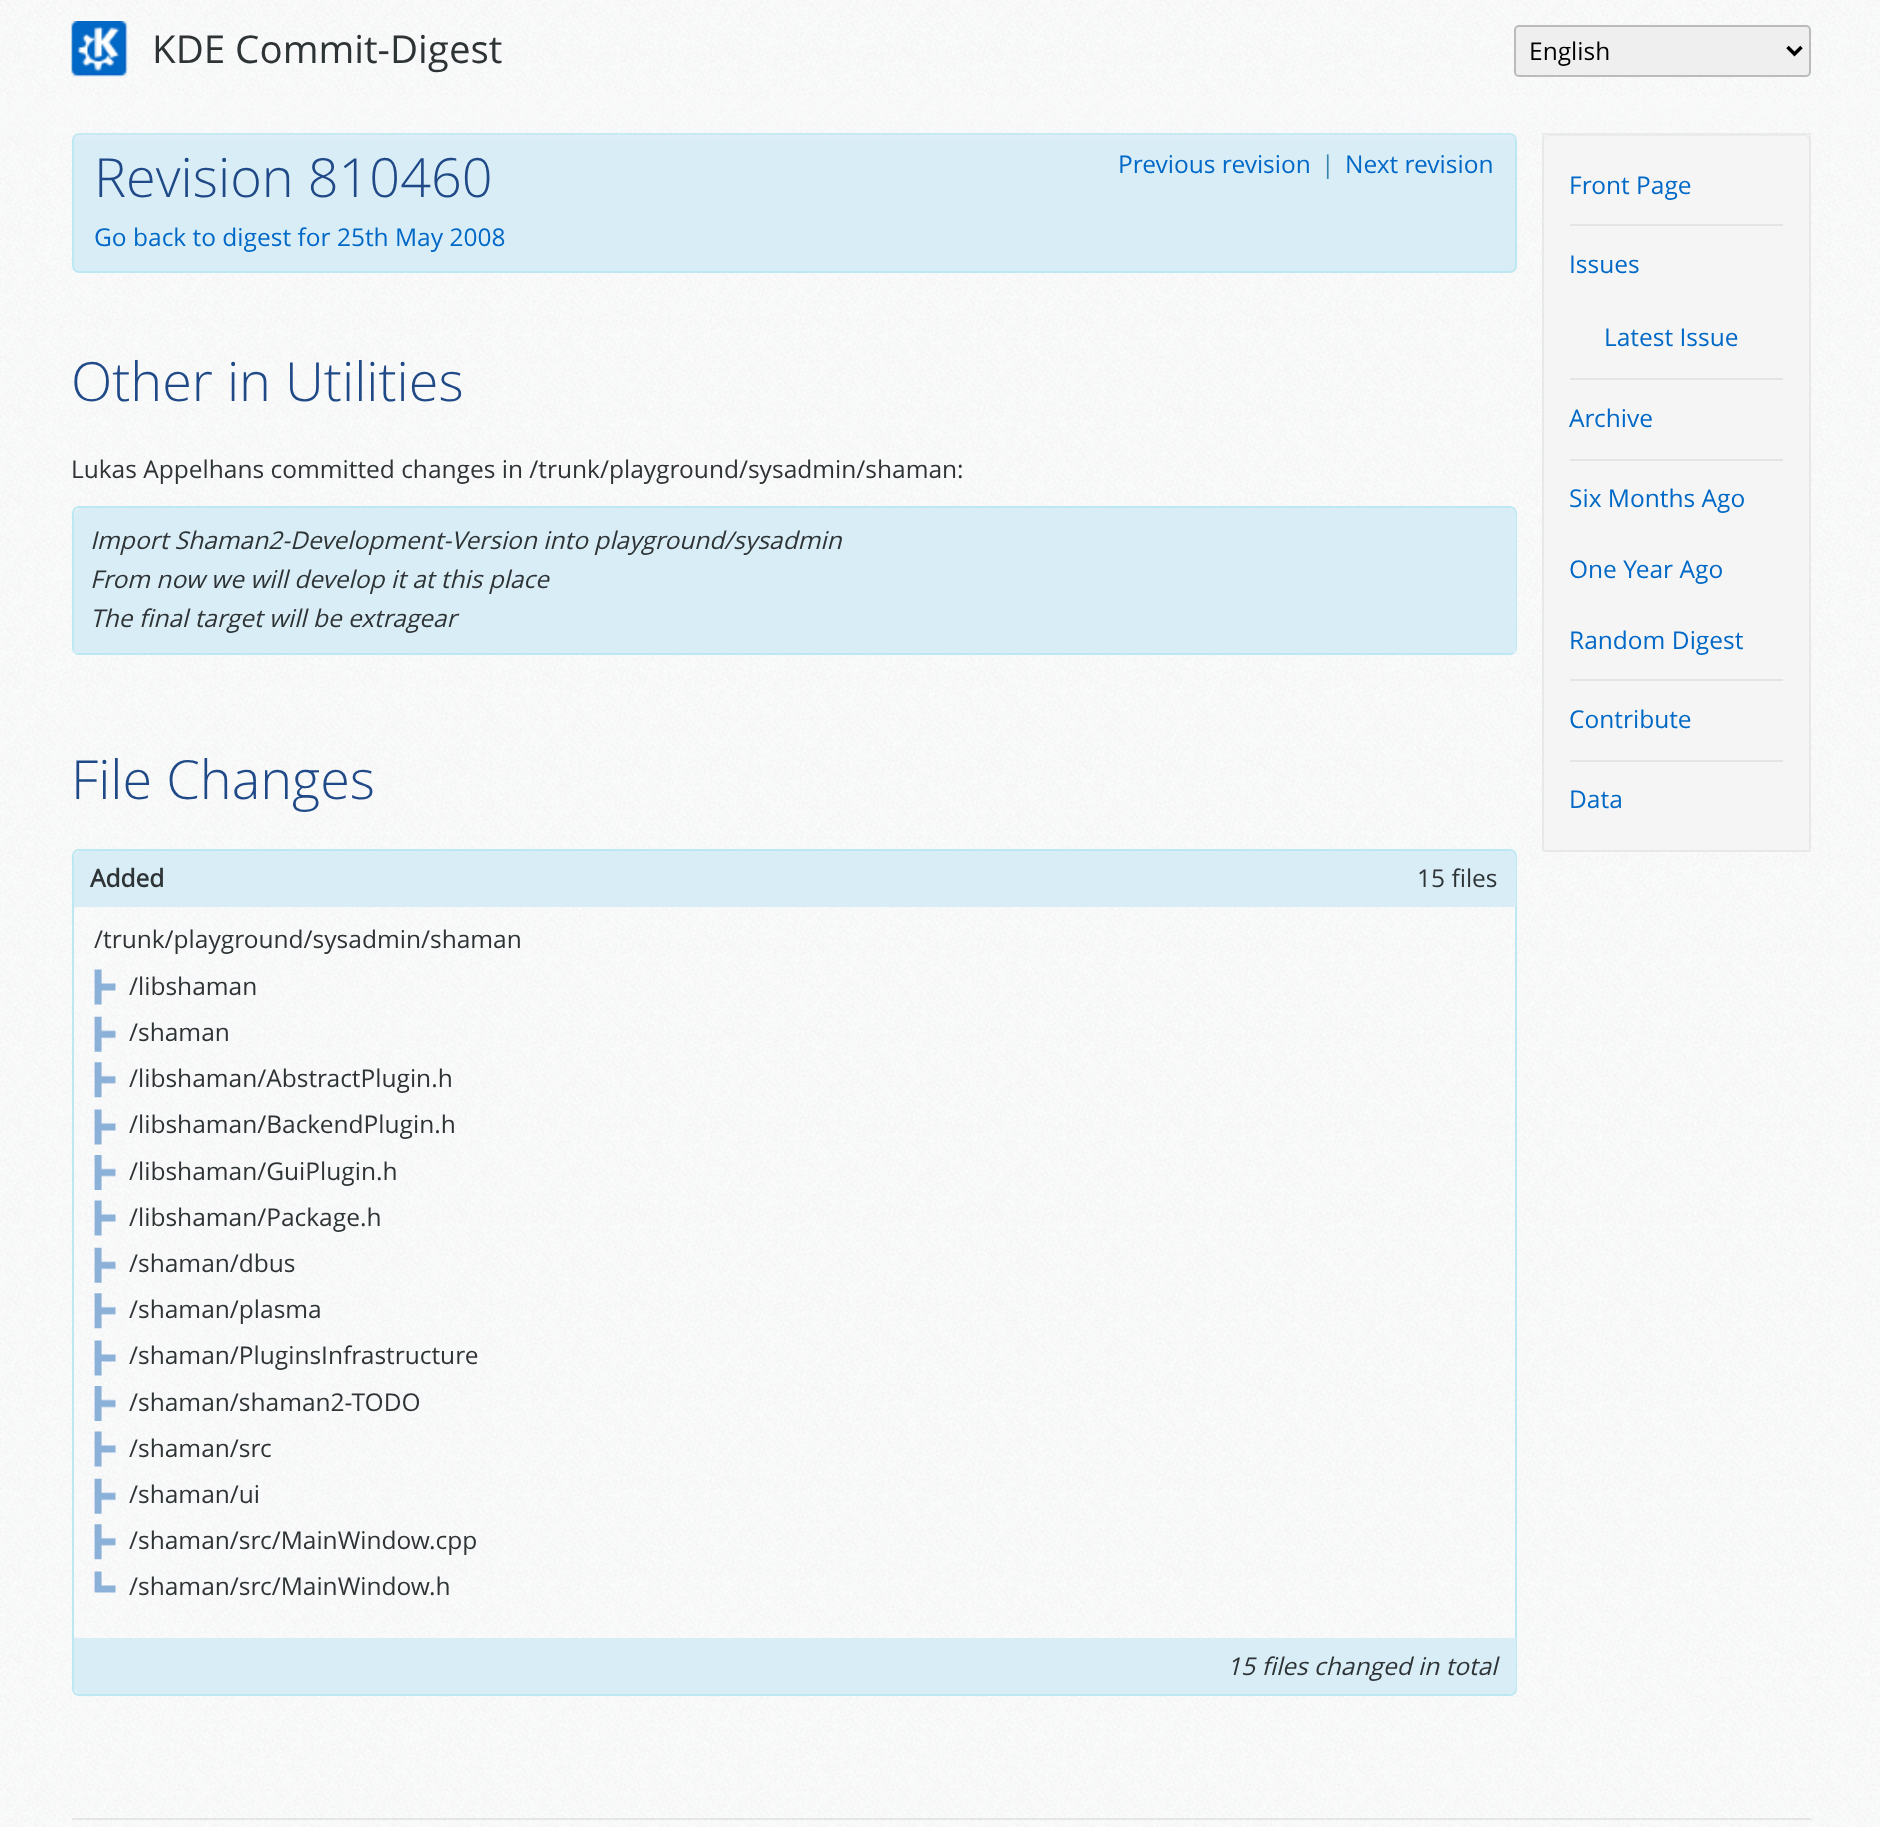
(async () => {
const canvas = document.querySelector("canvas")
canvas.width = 1880
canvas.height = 1827
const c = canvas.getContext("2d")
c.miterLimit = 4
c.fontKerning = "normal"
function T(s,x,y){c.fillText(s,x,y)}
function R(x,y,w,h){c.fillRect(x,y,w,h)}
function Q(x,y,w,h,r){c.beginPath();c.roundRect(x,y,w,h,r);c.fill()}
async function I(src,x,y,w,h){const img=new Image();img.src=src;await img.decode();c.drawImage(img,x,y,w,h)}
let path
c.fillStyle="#fff"
R(0,0,1880,1827)
await I("1.png",0,0,1880,1827)
c.fillStyle="#d9edf7"
c.beginPath()
c.roundRect(73,134,1443,138,6)
c.fill()
c.strokeStyle="#bce8f1"
c.lineWidth=2
c.stroke()
c.fillStyle="#f5f5f5"
Q(1542,133,269,719,7)
c.fillStyle="#e9e9e9"
path = new Path2D("M1549 136h255c3 0 6 3 6 6v-2c0-3-2-5-5-5h-256c-3 0-5 2-5 5v2c0-3 2-6 5-6z")
c.fill(path)
c.strokeStyle="#0000000d"
c.strokeRect(1543,134,267,717)
await I("2.png",0,98,1880,43)
await I("3.png",0,59,1880,39)
await I("4.png",71,21,57,56)
c.font="38.5px Open Sans"
c.fillStyle="#2e3436"
T("KDE Commit-Digest",152,63)
c.fillStyle="#efefef"
c.beginPath()
c.roundRect(1515,26,295,50,4)
c.fill()
c.strokeStyle="#bbb"
c.stroke()
path = new Path2D("M1787.5 47l7 7l7-7")
c.strokeStyle="#000"
c.lineWidth=3.5
c.stroke(path)
c.font="24.5px Open Sans"
c.fillStyle="#000"
T("English",1529,60)
c.font="300 54px Open Sans"
c.fillStyle="#204a87"
T("Revision 810460",94,197)
c.font="24.5px Open Sans"
c.fillStyle="#0068c6"
T("Previous revision",1118,173)
c.fillStyle="#3a87ad"
T("|",1321,173)
c.fillStyle="#0068c6"
T("Next revision",1345,173)
T("Go back to digest for 25th May 2008",94,246)
c.font="300 54px Open Sans"
c.fillStyle="#204a87"
T("Other in Utilities",71,401)
c.font="24.5px Open Sans"
c.fillStyle="#2e3436"
T("Lukas Appelhans committed changes in /trunk/playground/sysadmin/shaman:",71,478)
c.beginPath()
c.roundRect(73,507,1443,147,6)
c.strokeStyle="#bce8f1"
c.lineWidth=2
c.stroke()
c.fillStyle="#d9edf7"
c.beginPath()
c.roundRect(74,508,1442,145,[7,7,0,0])
c.fill()
c.font="italic 24.5px Open Sans"
c.fillStyle="#2e3436"
T("Import Shaman2-Development-Version into playground/sysadmin",90,549)
T("From now we will develop it at this place",90,588)
T("The final target will be extragear",90,627)
c.font="300 54px Open Sans"
c.fillStyle="#204a87"
T("File Changes",71,799)
c.beginPath()
c.roundRect(73,850,1443,845,6)
c.stroke()
c.fillStyle="#d9edf7"
c.beginPath()
c.roundRect(74,851,1442,56,[7,7,0,0])
c.fill()
c.font="bold 24.5px Open Sans"
c.fillStyle="#2e3436"
T("Added",90,887)
c.font="24.5px Open Sans"
T("15 files",1417,887)
T("/trunk/playground/sysadmin/shaman",94,948)
await I("5.png",94,969,22,36)
T("/libshaman",129,995)
await I("6.png",94,1016,22,36)
T("/shaman",129,1041)
await I("7.png",94,1062,22,36)
T("/libshaman/AbstractPlugin.h",129,1087)
await I("8.png",94,1109,22,36)
T("/libshaman/BackendPlugin.h",129,1133)
await I("9.png",94,1155,22,35)
T("/libshaman/GuiPlugin.h",129,1180)
await I("10.png",94,1200,22,36)
T("/libshaman/Package.h",129,1226)
await I("11.png",94,1247,22,36)
T("/shaman/dbus",129,1272)
await I("12.png",94,1293,22,36)
T("/shaman/plasma",129,1318)
await I("13.png",94,1340,22,36)
T("/shaman/PluginsInfrastructure",129,1364)
await I("14.png",94,1386,22,35)
T("/shaman/shaman2-TODO",129,1411)
await I("15.png",94,1431,22,36)
T("/shaman/src",129,1457)
await I("16.png",94,1478,22,36)
T("/shaman/ui",129,1503)
await I("17.png",94,1524,22,36)
T("/shaman/src/MainWindow.cpp",129,1549)
await I("18.png",94,1571,22,22)
T("/shaman/src/MainWindow.h",129,1595)
c.fillStyle="#d9edf7"
c.beginPath()
c.roundRect(74,1638,1442,56,[0,0,7,7])
c.fill()
c.font="italic 24.5px Open Sans"
c.fillStyle="#2e3436"
T("15 files changed in total",1227,1675)
c.fillStyle="#e4e4e4"
R(1570,224,213,2)
c.font="24.5px Open Sans"
c.fillStyle="#0068c6"
T("Front Page",1569,194)
c.fillStyle="#e4e4e4"
R(1570,378,213,2)
c.fillStyle="#0068c6"
T("Issues",1569,273)
T("Latest Issue",1604,346)
c.fillStyle="#e4e4e4"
R(1570,459,213,2)
c.fillStyle="#0068c6"
T("Archive",1569,427)
T("Six Months Ago",1569,507)
T("One Year Ago",1569,578)
c.fillStyle="#e4e4e4"
R(1570,679,213,2)
c.fillStyle="#0068c6"
T("Random Digest",1569,649)
c.fillStyle="#e4e4e4"
R(1570,760,213,2)
c.fillStyle="#0068c6"
T("Contribute",1569,728)
T("Data",1569,808)
c.fillStyle="#00000012"
R(72,1818,1739,2)
})()
